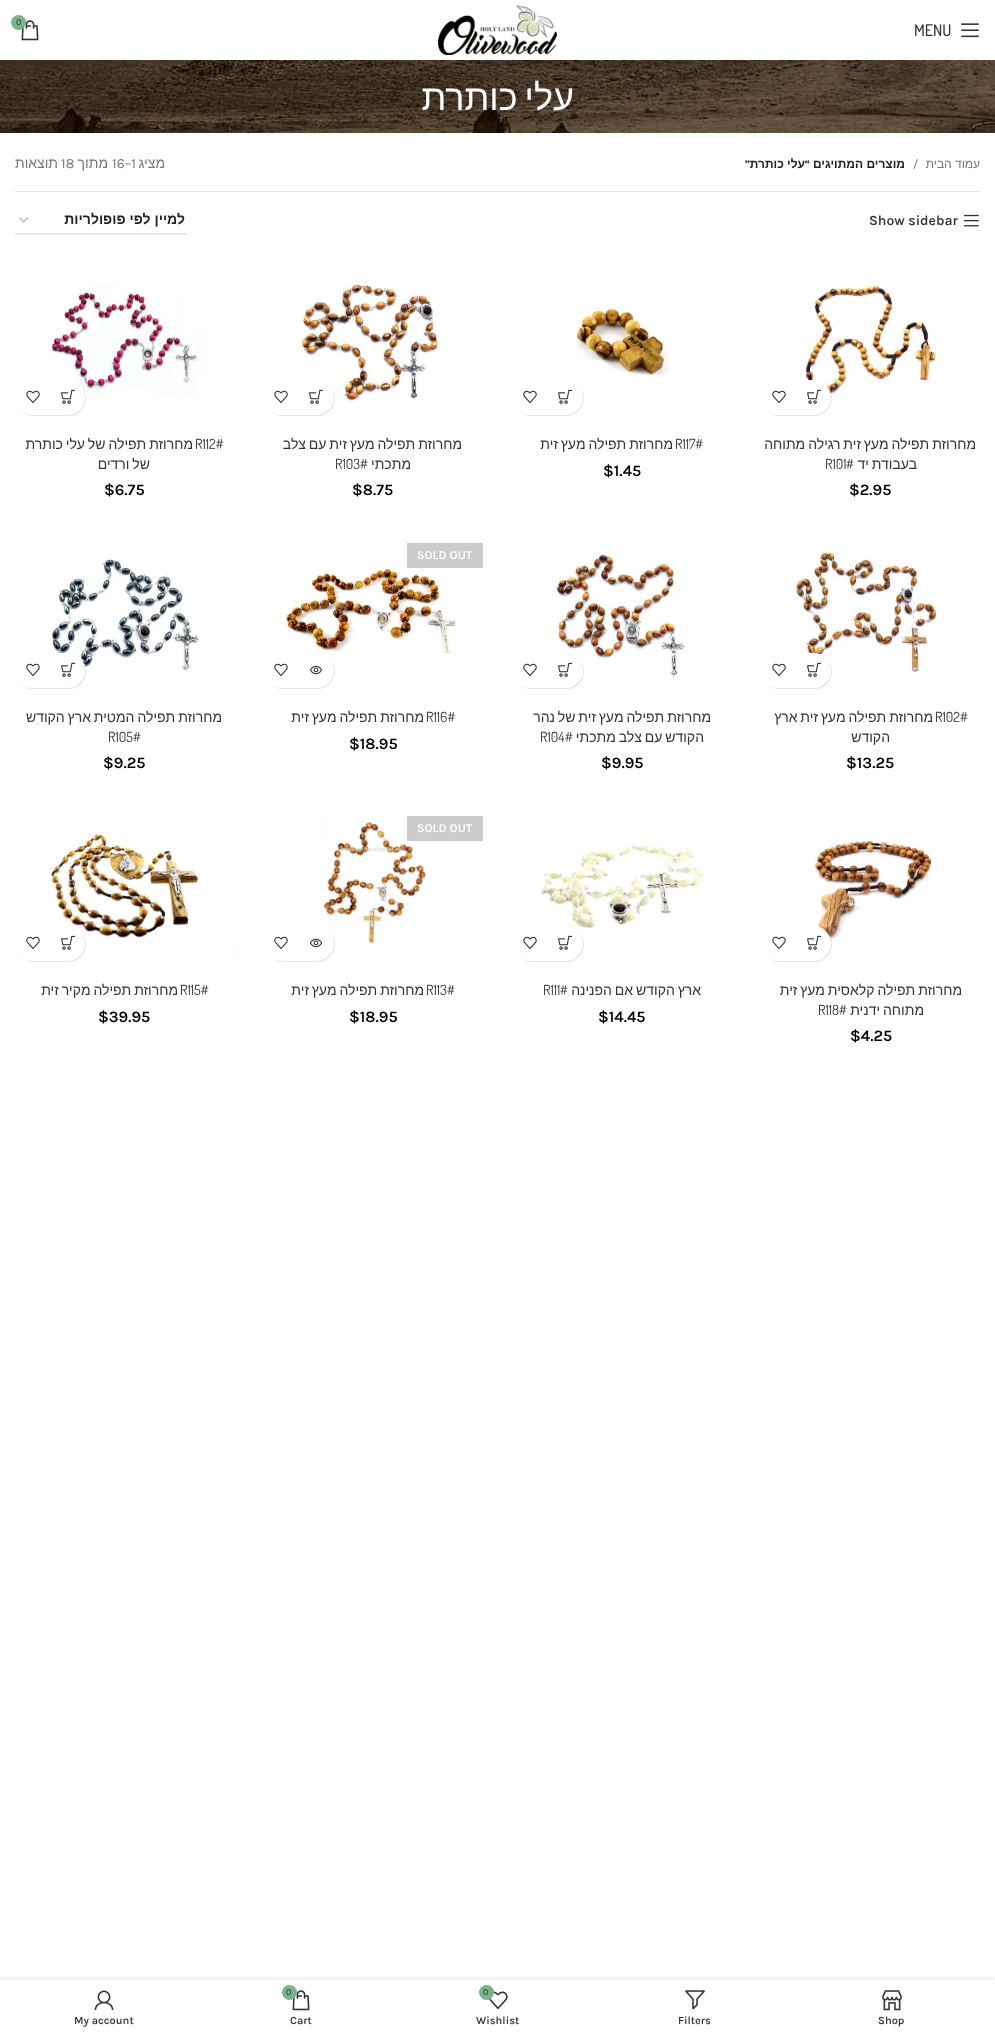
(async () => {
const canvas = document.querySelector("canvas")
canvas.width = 995
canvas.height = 2035
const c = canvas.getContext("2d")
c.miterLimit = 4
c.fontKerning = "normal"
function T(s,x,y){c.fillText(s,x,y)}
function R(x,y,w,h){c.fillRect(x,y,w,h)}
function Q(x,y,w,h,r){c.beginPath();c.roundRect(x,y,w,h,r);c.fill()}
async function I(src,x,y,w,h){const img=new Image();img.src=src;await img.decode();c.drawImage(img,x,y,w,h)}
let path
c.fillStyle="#fff"
R(0,0,995,2035)
await I("1.png",438,5,119,50)
await I("2.png",21,20,18,21)
c.fillStyle="#7ab38b"
c.beginPath()
c.arc(18.5,22.5,7.5,0,7)
c.fill()
c.font="9px Karla"
c.fillStyle="#333"
T("0",16,25)
await I("3.png",961,23,18,15)
c.font="500 16px Dosis"
T("MENU",914,36)
await I("4.png",0,60,995,73)
c.wordSpacing="-3px"
c.direction="rtl"
c.font="36px Liberation Sans"
c.fillStyle="#fff"
T("עלי כותרת",574,110)
c.fillStyle="#e4e4e4"
R(15,191,965,1)
c.wordSpacing="0px"
c.font="12px Liberation Sans"
c.fillStyle="#767676"
T("עמוד הבית",980,168)
c.direction="ltr"
c.font="12px Karla"
T("/",913,168)
c.direction="rtl"
c.font="bold 12px Liberation Sans"
c.fillStyle="#242424"
T("מוצרים המתויגים",905,168)
c.font="600 12px Karla"
T("“",810,168)
c.font="bold 12px Liberation Sans"
T("עלי כותרת",805,168)
c.font="600 12px Karla"
T("”",750,168)
c.font="14px Liberation Sans"
c.fillStyle="#767676"
T("מציג",165,168)
c.direction="ltr"
c.font="14px Karla"
T("16–1",112,168)
c.direction="rtl"
c.font="14px Liberation Sans"
T("מתוך",108,168)
c.direction="ltr"
c.font="14px Karla"
T("18",61,168)
c.direction="rtl"
c.font="14px Liberation Sans"
T("תוצאות",58,168)
await I("5.png",964,214,15,13)
c.direction="ltr"
c.font="600 14px Karla"
c.fillStyle="#333"
T("Show sidebar",869,225)
path = new Path2D("M19.5 217.5l4 4.5l4.5-4.5")
c.strokeStyle="#bbb"
c.lineWidth=1.4
c.stroke(path)
c.fillStyle="#e6e6e6"
R(15,233,172,2)
c.direction="rtl"
c.font="bold 14px Liberation Sans"
c.fillStyle="#242424"
T("למיין לפי פופולריות",185,224)
await I("6.png",805,283,132,113)
c.fillStyle="#0000001a"
c.filter="blur(0.5px)"
c.beginPath()
c.roundRect(762,381,70,35,17.5)
c.fill()
c.filter="none"
c.fillStyle="#fff"
Q(761,380,70,35,17.5)
await I("7.png",807,389,14,15)
await I("8.png",772,390,14,13)
c.wordSpacing="-1px"
c.font="14px Liberation Sans"
c.fillStyle="#333"
T("מחרוזת תפילה מעץ זית רגילה מתוחה",976,449)
T("בעבודת יד",917,469)
c.wordSpacing="0px"
c.font="14px Dosis"
T("#",854,469)
c.direction="ltr"
T("R101",825,469)
c.font="600 16px Karla"
c.fillStyle="#000"
T("$2.95",849,495)
await I("9.png",574,308,96,70)
c.fillStyle="#0000001a"
c.filter="blur(0.5px)"
c.beginPath()
c.roundRect(514,381,70,35,17.5)
c.fill()
c.filter="none"
c.fillStyle="#fff"
Q(513,380,70,35,17.5)
await I("7.png",558,389,14,15)
await I("8.png",523,390,14,13)
c.font="14px Dosis"
c.fillStyle="#333"
T("R117#",675,449)
c.wordSpacing="-1px"
c.direction="rtl"
c.font="14px Liberation Sans"
T("מחרוזת תפילה מעץ זית",673,449)
c.wordSpacing="0px"
c.direction="ltr"
c.font="600 16px Karla"
c.fillStyle="#000"
T("$1.45",603,476)
await I("10.png",300,283,139,119)
c.fillStyle="#0000001a"
c.filter="blur(0.5px)"
c.beginPath()
c.roundRect(265,381,70,35,17.5)
c.fill()
c.filter="none"
c.fillStyle="#fff"
Q(264,380,70,35,17.5)
await I("7.png",309,389,14,15)
await I("8.png",274,390,14,13)
c.wordSpacing="-1px"
c.direction="rtl"
c.font="14px Liberation Sans"
c.fillStyle="#333"
T("מחרוזת תפילה מעץ זית עם צלב",462,449)
c.wordSpacing="0px"
T("מתכתי",411,469)
c.font="14px Dosis"
T("#",368,469)
c.direction="ltr"
T("R103",335,469)
c.font="600 16px Karla"
c.fillStyle="#000"
T("$8.75",352,495)
await I("11.png",48,283,156,115)
c.fillStyle="#0000001a"
c.filter="blur(0.5px)"
c.beginPath()
c.roundRect(16,381,70,35,17.5)
c.fill()
c.filter="none"
c.fillStyle="#fff"
Q(15,380,70,35,17.5)
await I("7.png",61,389,14,15)
await I("8.png",26,390,14,13)
c.font="14px Dosis"
c.fillStyle="#333"
T("R112#",195,449)
c.wordSpacing="-1px"
c.direction="rtl"
c.font="14px Liberation Sans"
T("מחרוזת תפילה של עלי כותרת",193,449)
T("של ורדים",150,469)
c.wordSpacing="0px"
c.direction="ltr"
c.font="600 16px Karla"
c.fillStyle="#000"
T("$6.75",104,495)
await I("12.png",793,552,145,121)
c.fillStyle="#0000001a"
c.filter="blur(0.5px)"
c.beginPath()
c.roundRect(762,654,70,35,17.5)
c.fill()
c.filter="none"
c.fillStyle="#fff"
Q(761,653,70,35,17.5)
await I("7.png",807,662,14,15)
await I("8.png",772,663,14,13)
c.font="14px Dosis"
c.fillStyle="#333"
T("R102#",935,722)
c.wordSpacing="-1px"
c.direction="rtl"
c.font="14px Liberation Sans"
T("מחרוזת תפילה מעץ זית ארץ",933,722)
c.wordSpacing="0px"
T("הקודש",890,742)
c.direction="ltr"
c.font="600 16px Karla"
c.fillStyle="#000"
T("$13.25",846,768)
await I("13.png",555,552,130,125)
c.fillStyle="#0000001a"
c.filter="blur(0.5px)"
c.beginPath()
c.roundRect(514,654,70,35,17.5)
c.fill()
c.filter="none"
c.fillStyle="#fff"
Q(513,653,70,35,17.5)
await I("7.png",558,662,14,15)
await I("8.png",523,663,14,13)
c.wordSpacing="-1px"
c.direction="rtl"
c.font="14px Liberation Sans"
c.fillStyle="#333"
T("מחרוזת תפילה מעץ זית של נהר",711,722)
T("הקודש עם צלב מתכתי",704,742)
c.wordSpacing="0px"
c.font="14px Dosis"
T("#",573,742)
c.direction="ltr"
T("R104",540,742)
c.font="600 16px Karla"
c.fillStyle="#000"
T("$9.95",601,768)
c.fillStyle="#ccc"
R(407,543,76,25)
c.font="600 12px Karla"
c.fillStyle="#fff"
T("SOLD OUT",417,559)
await I("14.png",284,568,173,87)
c.fillStyle="#0000001a"
c.filter="blur(0.5px)"
c.beginPath()
c.roundRect(265,654,70,35,17.5)
c.fill()
c.filter="none"
c.fillStyle="#fff"
Q(264,653,70,35,17.5)
await I("15.png",309,665,14,10)
await I("8.png",274,663,14,13)
c.font="14px Dosis"
c.fillStyle="#333"
T("R116#",426,722)
c.wordSpacing="-1px"
c.direction="rtl"
c.font="14px Liberation Sans"
T("מחרוזת תפילה מעץ זית",424,722)
c.wordSpacing="0px"
c.direction="ltr"
c.font="600 16px Karla"
c.fillStyle="#000"
T("$18.95",349,749)
await I("16.png",52,558,147,113)
c.fillStyle="#0000001a"
c.filter="blur(0.5px)"
c.beginPath()
c.roundRect(16,654,70,35,17.5)
c.fill()
c.filter="none"
c.fillStyle="#fff"
Q(15,653,70,35,17.5)
await I("7.png",61,662,14,15)
await I("8.png",26,663,14,13)
c.wordSpacing="-1px"
c.direction="rtl"
c.font="14px Liberation Sans"
c.fillStyle="#333"
T("מחרוזת תפילה המטית ארץ הקודש",222,722)
c.wordSpacing="0px"
c.direction="ltr"
c.font="14px Dosis"
T("R105#",108,742)
c.font="600 16px Karla"
c.fillStyle="#000"
T("$9.25",103,768)
await I("17.png",814,838,118,103)
c.fillStyle="#0000001a"
c.filter="blur(0.5px)"
c.beginPath()
c.roundRect(762,927,70,35,17.5)
c.fill()
c.filter="none"
c.fillStyle="#fff"
Q(761,926,70,35,17.5)
await I("7.png",807,935,14,15)
await I("8.png",772,936,14,13)
c.wordSpacing="-1px"
c.direction="rtl"
c.font="14px Liberation Sans"
c.fillStyle="#333"
T("מחרוזת תפילה קלאסית מעץ זית",962,995)
T("מתוחה ידנית",924,1015)
c.wordSpacing="0px"
c.font="14px Dosis"
T("#",847,1015)
c.direction="ltr"
T("R118",818,1015)
c.font="600 16px Karla"
c.fillStyle="#000"
T("$4.25",850,1041)
await I("18.png",541,844,162,88)
c.fillStyle="#0000001a"
c.filter="blur(0.5px)"
c.beginPath()
c.roundRect(514,927,70,35,17.5)
c.fill()
c.filter="none"
c.fillStyle="#fff"
Q(513,926,70,35,17.5)
await I("7.png",558,935,14,15)
await I("8.png",523,936,14,13)
c.wordSpacing="-1px"
c.direction="rtl"
c.font="14px Liberation Sans"
c.fillStyle="#333"
T("ארץ הקודש אם הפנינה",701,995)
c.wordSpacing="0px"
c.font="14px Dosis"
T("#",568,995)
c.direction="ltr"
T("R111",543,995)
c.font="600 16px Karla"
c.fillStyle="#000"
T("$14.45",598,1022)
await I("19.png",321,818,105,126)
c.fillStyle="#ccc"
R(407,816,76,25)
c.font="600 12px Karla"
c.fillStyle="#fff"
T("SOLD OUT",417,832)
c.fillStyle="#0000001a"
c.filter="blur(0.5px)"
c.beginPath()
c.roundRect(265,927,70,35,17.5)
c.fill()
c.filter="none"
c.fillStyle="#fff"
Q(264,926,70,35,17.5)
await I("15.png",309,938,14,10)
await I("8.png",274,936,14,13)
c.font="14px Dosis"
c.fillStyle="#333"
T("R113#",426,995)
c.wordSpacing="-1px"
c.direction="rtl"
c.font="14px Liberation Sans"
T("מחרוזת תפילה מעץ זית",424,995)
c.wordSpacing="0px"
c.direction="ltr"
c.font="600 16px Karla"
c.fillStyle="#000"
T("$18.95",349,1022)
await I("20.png",51,834,183,119)
c.fillStyle="#0000001a"
c.filter="blur(0.5px)"
c.beginPath()
c.roundRect(16,927,70,35,17.5)
c.fill()
c.filter="none"
c.fillStyle="#fff"
Q(15,926,70,35,17.5)
await I("7.png",61,935,14,15)
await I("8.png",26,936,14,13)
c.font="14px Dosis"
c.fillStyle="#333"
T("R115#",180,995)
c.wordSpacing="-1px"
c.direction="rtl"
c.font="14px Liberation Sans"
T("מחרוזת תפילה מקיר זית",178,995)
c.wordSpacing="0px"
c.direction="ltr"
c.font="600 16px Karla"
c.fillStyle="#000"
T("$39.95",98,1022)
c.save()
c.beginPath()
c.rect(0,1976,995,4)
c.clip()
c.fillStyle="#0000001f"
c.filter="blur(4.5px)"
c.beginPath()
c.rect(0,1980,995,55)
c.fill()
c.filter="none"
c.restore()
await I("21.png",882,1990,20,21)
c.font="600 11px Karla"
c.fillStyle="#333"
T("Shop",878,2024)
await I("22.png",685,1990,20,20)
T("Filters",678,2024)
await I("23.png",488,1991,20,18)
c.fillStyle="#7ab38b"
c.beginPath()
c.arc(486.5,1992.5,7.5,0,7)
c.fill()
c.font="9px Karla"
c.fillStyle="#333"
T("0",483,1995)
c.font="600 11px Karla"
T("Wishlist",476,2024)
await I("2.png",292,1990,18,21)
c.fillStyle="#7ab38b"
c.beginPath()
c.arc(289.5,1992.5,7.5,0,7)
c.fill()
c.font="9px Karla"
c.fillStyle="#333"
T("0",286,1995)
c.font="600 11px Karla"
T("Cart",290,2024)
await I("24.png",94,1990,20,20)
T("My account",74,2024)
})()
